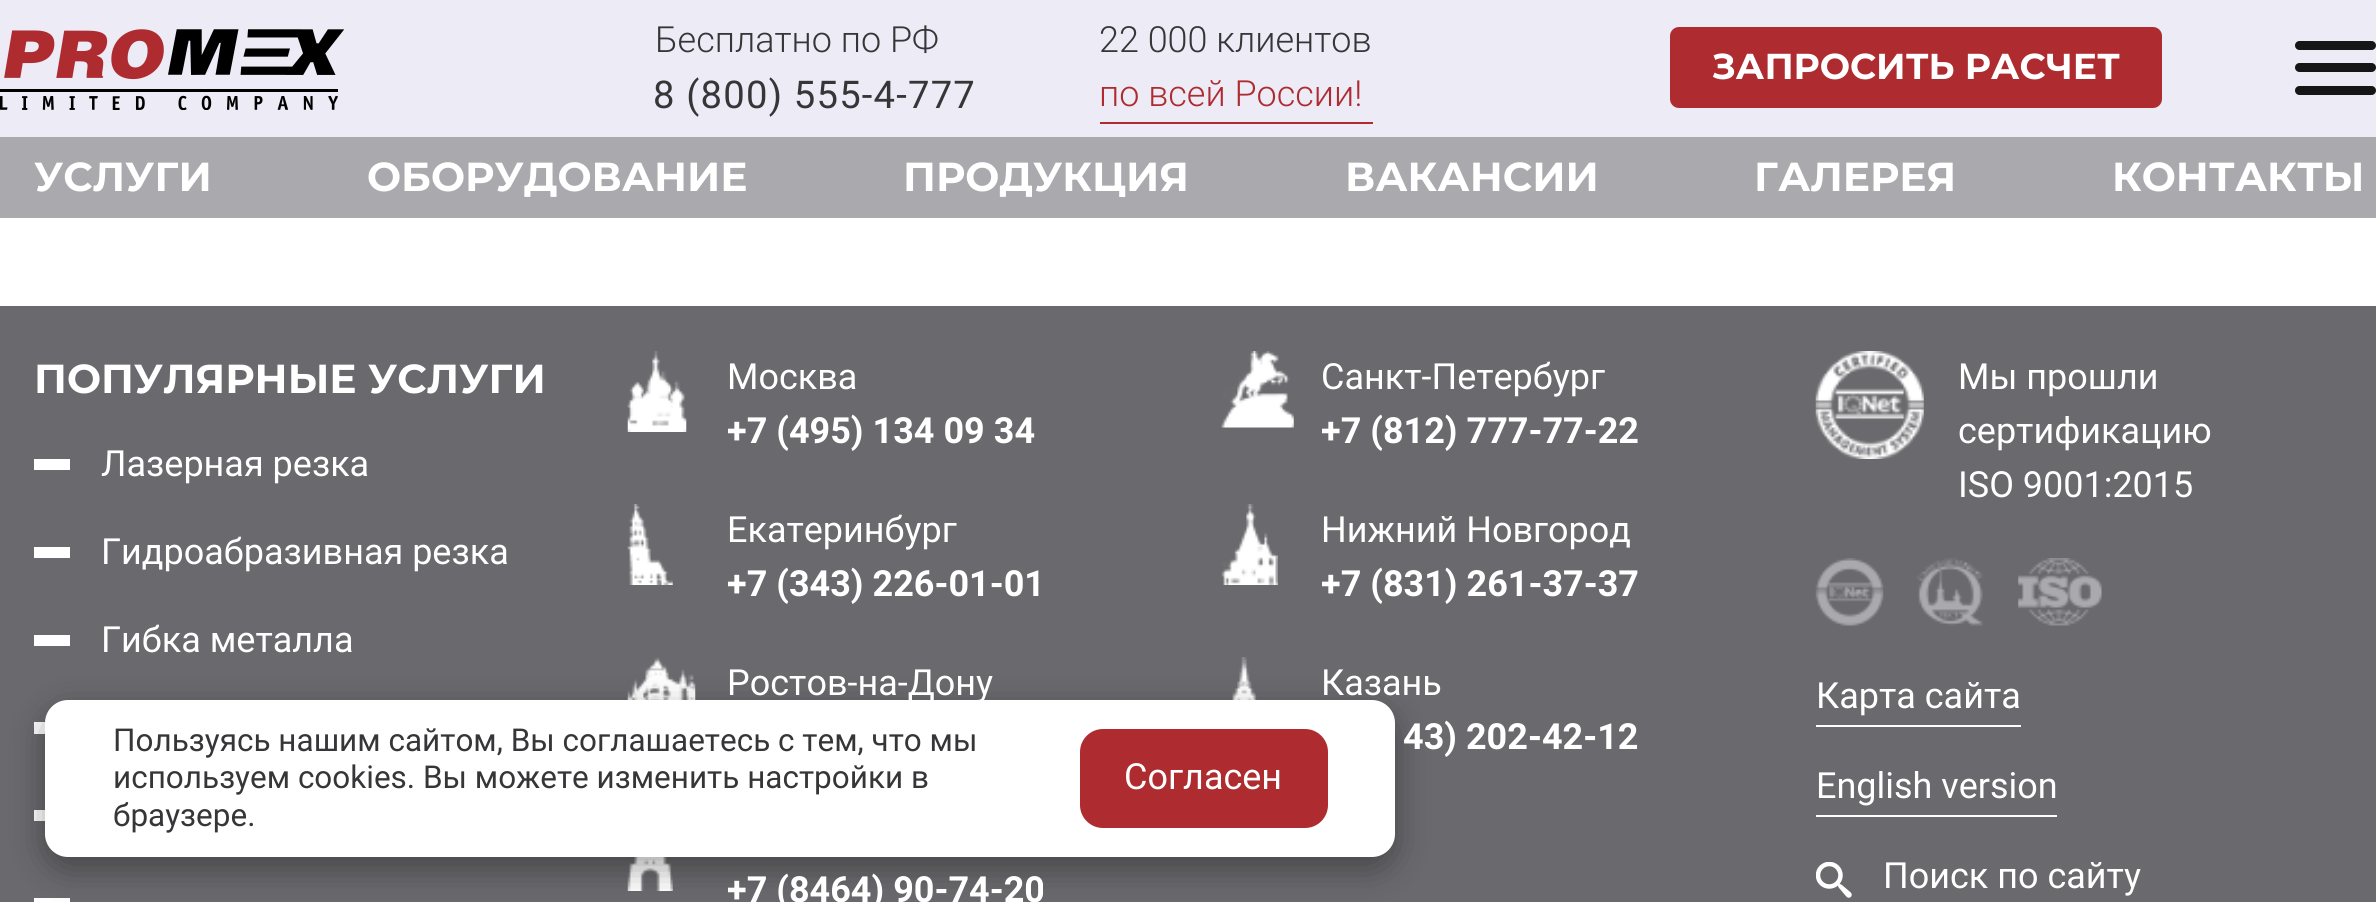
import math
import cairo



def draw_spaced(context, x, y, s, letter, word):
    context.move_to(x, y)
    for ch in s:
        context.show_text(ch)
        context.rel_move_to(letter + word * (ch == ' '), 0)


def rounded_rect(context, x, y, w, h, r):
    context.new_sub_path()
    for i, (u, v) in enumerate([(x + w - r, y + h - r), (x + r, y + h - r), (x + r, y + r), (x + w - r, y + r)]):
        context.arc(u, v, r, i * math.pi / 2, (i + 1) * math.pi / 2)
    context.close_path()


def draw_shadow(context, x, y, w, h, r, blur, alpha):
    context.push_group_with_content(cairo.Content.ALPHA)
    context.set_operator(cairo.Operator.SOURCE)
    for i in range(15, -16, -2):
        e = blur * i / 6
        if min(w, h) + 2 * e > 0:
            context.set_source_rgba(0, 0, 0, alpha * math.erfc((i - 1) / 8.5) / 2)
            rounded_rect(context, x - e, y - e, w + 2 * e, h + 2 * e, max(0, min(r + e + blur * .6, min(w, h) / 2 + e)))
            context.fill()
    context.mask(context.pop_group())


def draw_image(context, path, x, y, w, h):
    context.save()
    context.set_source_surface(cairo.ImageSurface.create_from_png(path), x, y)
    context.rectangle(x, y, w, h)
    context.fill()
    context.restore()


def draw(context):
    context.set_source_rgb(106 / 255, 106 / 255, 110 / 255)
    context.paint()
    context.set_source_rgb(236 / 255, 235 / 255, 246 / 255)
    context.rectangle(0, 0, 2376, 137)
    context.fill()
    draw_image(context, "images/1.png", 0, 29, 344, 81)
    context.set_source_rgb(174 / 255, 44 / 255, 48 / 255)
    context.rectangle(1100, 122, 273, 2)
    context.fill()
    rounded_rect(context, 1670, 27, 492, 81, 9)
    context.fill()
    context.set_source_rgb(22 / 255, 22 / 255, 23 / 255)
    rounded_rect(context, 2295, 63, 81, 9, 4.5)
    context.fill()
    rounded_rect(context, 2295, 41, 81, 9, 4.5)
    context.fill()
    rounded_rect(context, 2295, 86, 81, 9, 4.5)
    context.fill()
    context.set_source_rgb(170 / 255, 169 / 255, 174 / 255)
    context.rectangle(0, 137, 2376, 81)
    context.fill()
    gradient = cairo.LinearGradient(1188, -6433, 1188, 306)
    gradient.add_color_stop_rgba(0, 236 / 255, 235 / 255, 246 / 255, 1)
    gradient.add_color_stop_rgba(1, 1, 1, 1, 1)
    context.set_source(gradient)
    context.rectangle(0, 218, 2376, 88)
    context.fill()
    context.set_source_rgb(1, 1, 1)
    context.rectangle(34, 459, 36, 11)
    context.fill()
    context.rectangle(34, 547, 36, 11)
    context.fill()
    context.rectangle(34, 635, 36, 11)
    context.fill()
    context.rectangle(34, 722, 12, 12)
    context.fill()
    context.rectangle(34, 810, 11, 11)
    context.fill()
    context.rectangle(34, 898, 36, 4)
    context.fill()
    draw_image(context, "images/2.png", 627, 351, 60, 81)
    draw_image(context, "images/3.png", 1221, 351, 73, 77)
    draw_image(context, "images/4.png", 627, 504, 46, 81)
    draw_image(context, "images/5.png", 1221, 504, 57, 81)
    draw_image(context, "images/6.png", 627, 657, 69, 43)
    draw_image(context, "images/7.png", 1232, 657, 25, 43)
    draw_image(context, "images/8.png", 627, 857, 46, 34)
    draw_image(context, "images/9.png", 1815, 351, 109, 108)
    draw_image(context, "images/10.png", 1815, 558, 69, 68)
    draw_image(context, "images/11.png", 1917, 558, 66, 68)
    draw_image(context, "images/12.png", 2018, 558, 84, 68)
    context.rectangle(1816, 725, 205, 2)
    context.fill()
    context.rectangle(1816, 815, 241, 2)
    context.fill()
    draw_image(context, "images/13.png", 1816, 862, 36, 36)
    context.set_source_rgb(0, 0, 0)
    draw_shadow(context, 45, 711, 1350, 158, 23, 17, 0.35)
    context.set_source_rgb(1, 1, 1)
    rounded_rect(context, 45, 700, 1350, 157, 23)
    context.fill()
    context.set_source_rgb(174 / 255, 44 / 255, 48 / 255)
    rounded_rect(context, 1080, 729, 248, 99, 23)
    context.fill()
    context.select_font_face("Roboto Light")
    context.set_font_size(36)
    context.set_source_rgb(54 / 255, 54 / 255, 56 / 255)
    context.move_to(655, 52)
    context.show_text("Бесплатно по РФ")
    context.select_font_face("Roboto")
    context.set_font_size(38.25)
    draw_spaced(context, 653, 108, "8 (800) 555-4-777", 1.2, 0)
    context.select_font_face("Roboto Light")
    context.set_font_size(36)
    context.move_to(1099, 52)
    context.show_text("22 000 клиентов")
    context.set_source_rgb(174 / 255, 44 / 255, 48 / 255)
    context.move_to(1099, 106)
    context.show_text("по всей России!")
    context.select_font_face("Montserrat", cairo.FontSlant.NORMAL, cairo.FontWeight.BOLD)
    context.set_source_rgb(1, 1, 1)
    context.move_to(1712, 79)
    context.show_text("ЗАПРОСИТЬ РАСЧЕТ")
    context.set_font_size(40.5)
    context.move_to(34, 191)
    context.show_text("УСЛУГИ")
    context.move_to(367, 191)
    context.show_text("ОБОРУДОВАНИЕ")
    context.move_to(903, 191)
    context.show_text("ПРОДУКЦИЯ")
    context.move_to(1345, 191)
    context.show_text("ВАКАНСИИ")
    context.move_to(1754, 191)
    context.show_text("ГАЛЕРЕЯ")
    context.move_to(2112, 191)
    context.show_text("КОНТАКТЫ")
    context.move_to(34, 393)
    context.show_text("ПОПУЛЯРНЫЕ УСЛУГИ")
    context.select_font_face("Roboto")
    context.set_font_size(36)
    context.move_to(101, 476)
    context.show_text("Лазерная резка")
    context.move_to(101, 564)
    context.show_text("Гидроабразивная резка")
    context.move_to(101, 652)
    context.show_text("Гибка металла")
    context.move_to(727, 389)
    context.show_text("Москва")
    context.select_font_face("Roboto", cairo.FontSlant.NORMAL, cairo.FontWeight.BOLD)
    context.move_to(727, 443)
    context.show_text("+7 (495) 134 09 34")
    context.select_font_face("Roboto")
    context.move_to(1321, 389)
    context.show_text("Санкт-Петербург")
    context.select_font_face("Roboto", cairo.FontSlant.NORMAL, cairo.FontWeight.BOLD)
    context.move_to(1321, 443)
    context.show_text("+7 (812) 777-77-22")
    context.select_font_face("Roboto")
    context.move_to(727, 542)
    context.show_text("Екатеринбург")
    context.select_font_face("Roboto", cairo.FontSlant.NORMAL, cairo.FontWeight.BOLD)
    context.move_to(727, 596)
    context.show_text("+7 (343) 226-01-01")
    context.select_font_face("Roboto")
    context.move_to(1321, 542)
    context.show_text("Нижний Новгород")
    context.select_font_face("Roboto", cairo.FontSlant.NORMAL, cairo.FontWeight.BOLD)
    context.move_to(1321, 596)
    context.show_text("+7 (831) 261-37-37")
    context.select_font_face("Roboto")
    context.move_to(727, 695)
    context.show_text("Ростов-на-Дону")
    context.move_to(1321, 695)
    context.show_text("Казань")
    context.select_font_face("Roboto", cairo.FontSlant.NORMAL, cairo.FontWeight.BOLD)
    context.move_to(1403, 749)
    context.show_text("43) 202-42-12")
    context.move_to(727, 902)
    context.show_text("+7 (8464) 90-74-20")
    context.select_font_face("Roboto")
    context.move_to(1958, 389)
    context.show_text("Мы прошли")
    context.move_to(1958, 443)
    context.show_text("сертификацию")
    context.move_to(1958, 497)
    context.show_text("ISO 9001:2015")
    context.move_to(1816, 708)
    context.show_text("Карта сайта")
    context.move_to(1816, 798)
    context.show_text("English version")
    context.move_to(1883, 888)
    context.show_text("Поиск по сайту")
    context.set_font_size(31.5)
    context.set_source_rgb(54 / 255, 54 / 255, 56 / 255)
    context.move_to(113, 751)
    context.show_text("Пользуясь нашим сайтом, Вы соглашаетесь с тем, что мы")
    context.move_to(113, 788)
    context.show_text("используем cookies. Вы можете изменить настройки в")
    context.move_to(113, 826)
    context.show_text("браузере.")
    context.set_font_size(36)
    context.set_source_rgb(1, 1, 1)
    context.move_to(1124, 789)
    context.show_text("Согласен")


surface = cairo.ImageSurface(cairo.Format.RGB24, 2376, 902)
context = cairo.Context(surface)
options = cairo.FontOptions()
options.set_hint_metrics(cairo.HintMetrics.OFF)
options.set_hint_style(cairo.HintStyle.NONE)
context.set_font_options(options)
context.set_miter_limit(4)
draw(context)
surface.write_to_png("out.png")
